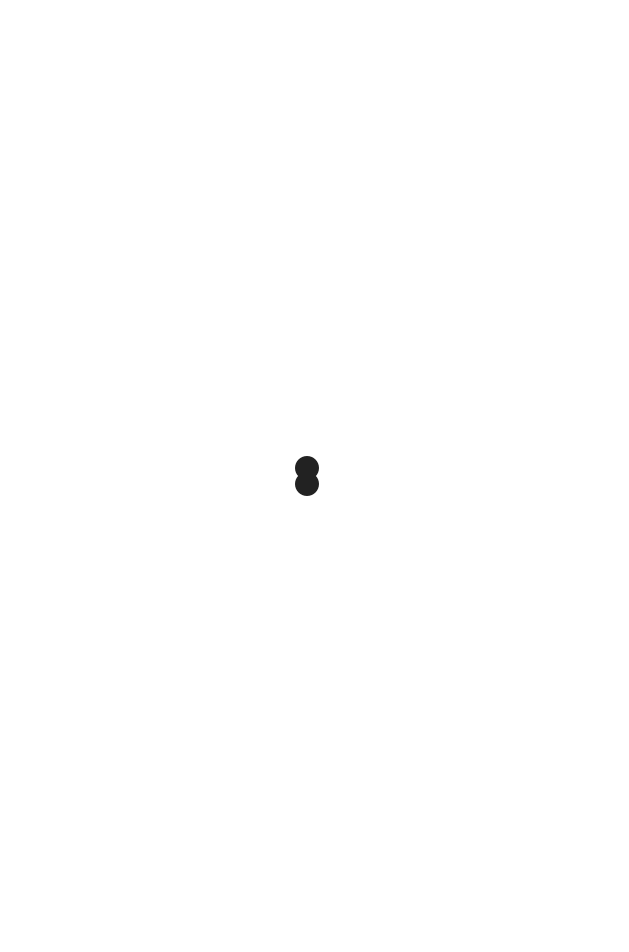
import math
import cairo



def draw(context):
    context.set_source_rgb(1, 1, 1)
    context.paint()
    context.set_source_rgb(34 / 255, 34 / 255, 34 / 255)
    context.arc(307, 468, 12, 0, 2 * math.pi)
    context.fill()
    context.arc(307, 484, 12, 0, 2 * math.pi)
    context.fill()


surface = cairo.ImageSurface(cairo.Format.RGB24, 629, 952)
context = cairo.Context(surface)
options = cairo.FontOptions()
options.set_hint_metrics(cairo.HintMetrics.OFF)
options.set_hint_style(cairo.HintStyle.NONE)
context.set_font_options(options)
context.set_miter_limit(4)
draw(context)
surface.write_to_png("out.png")
